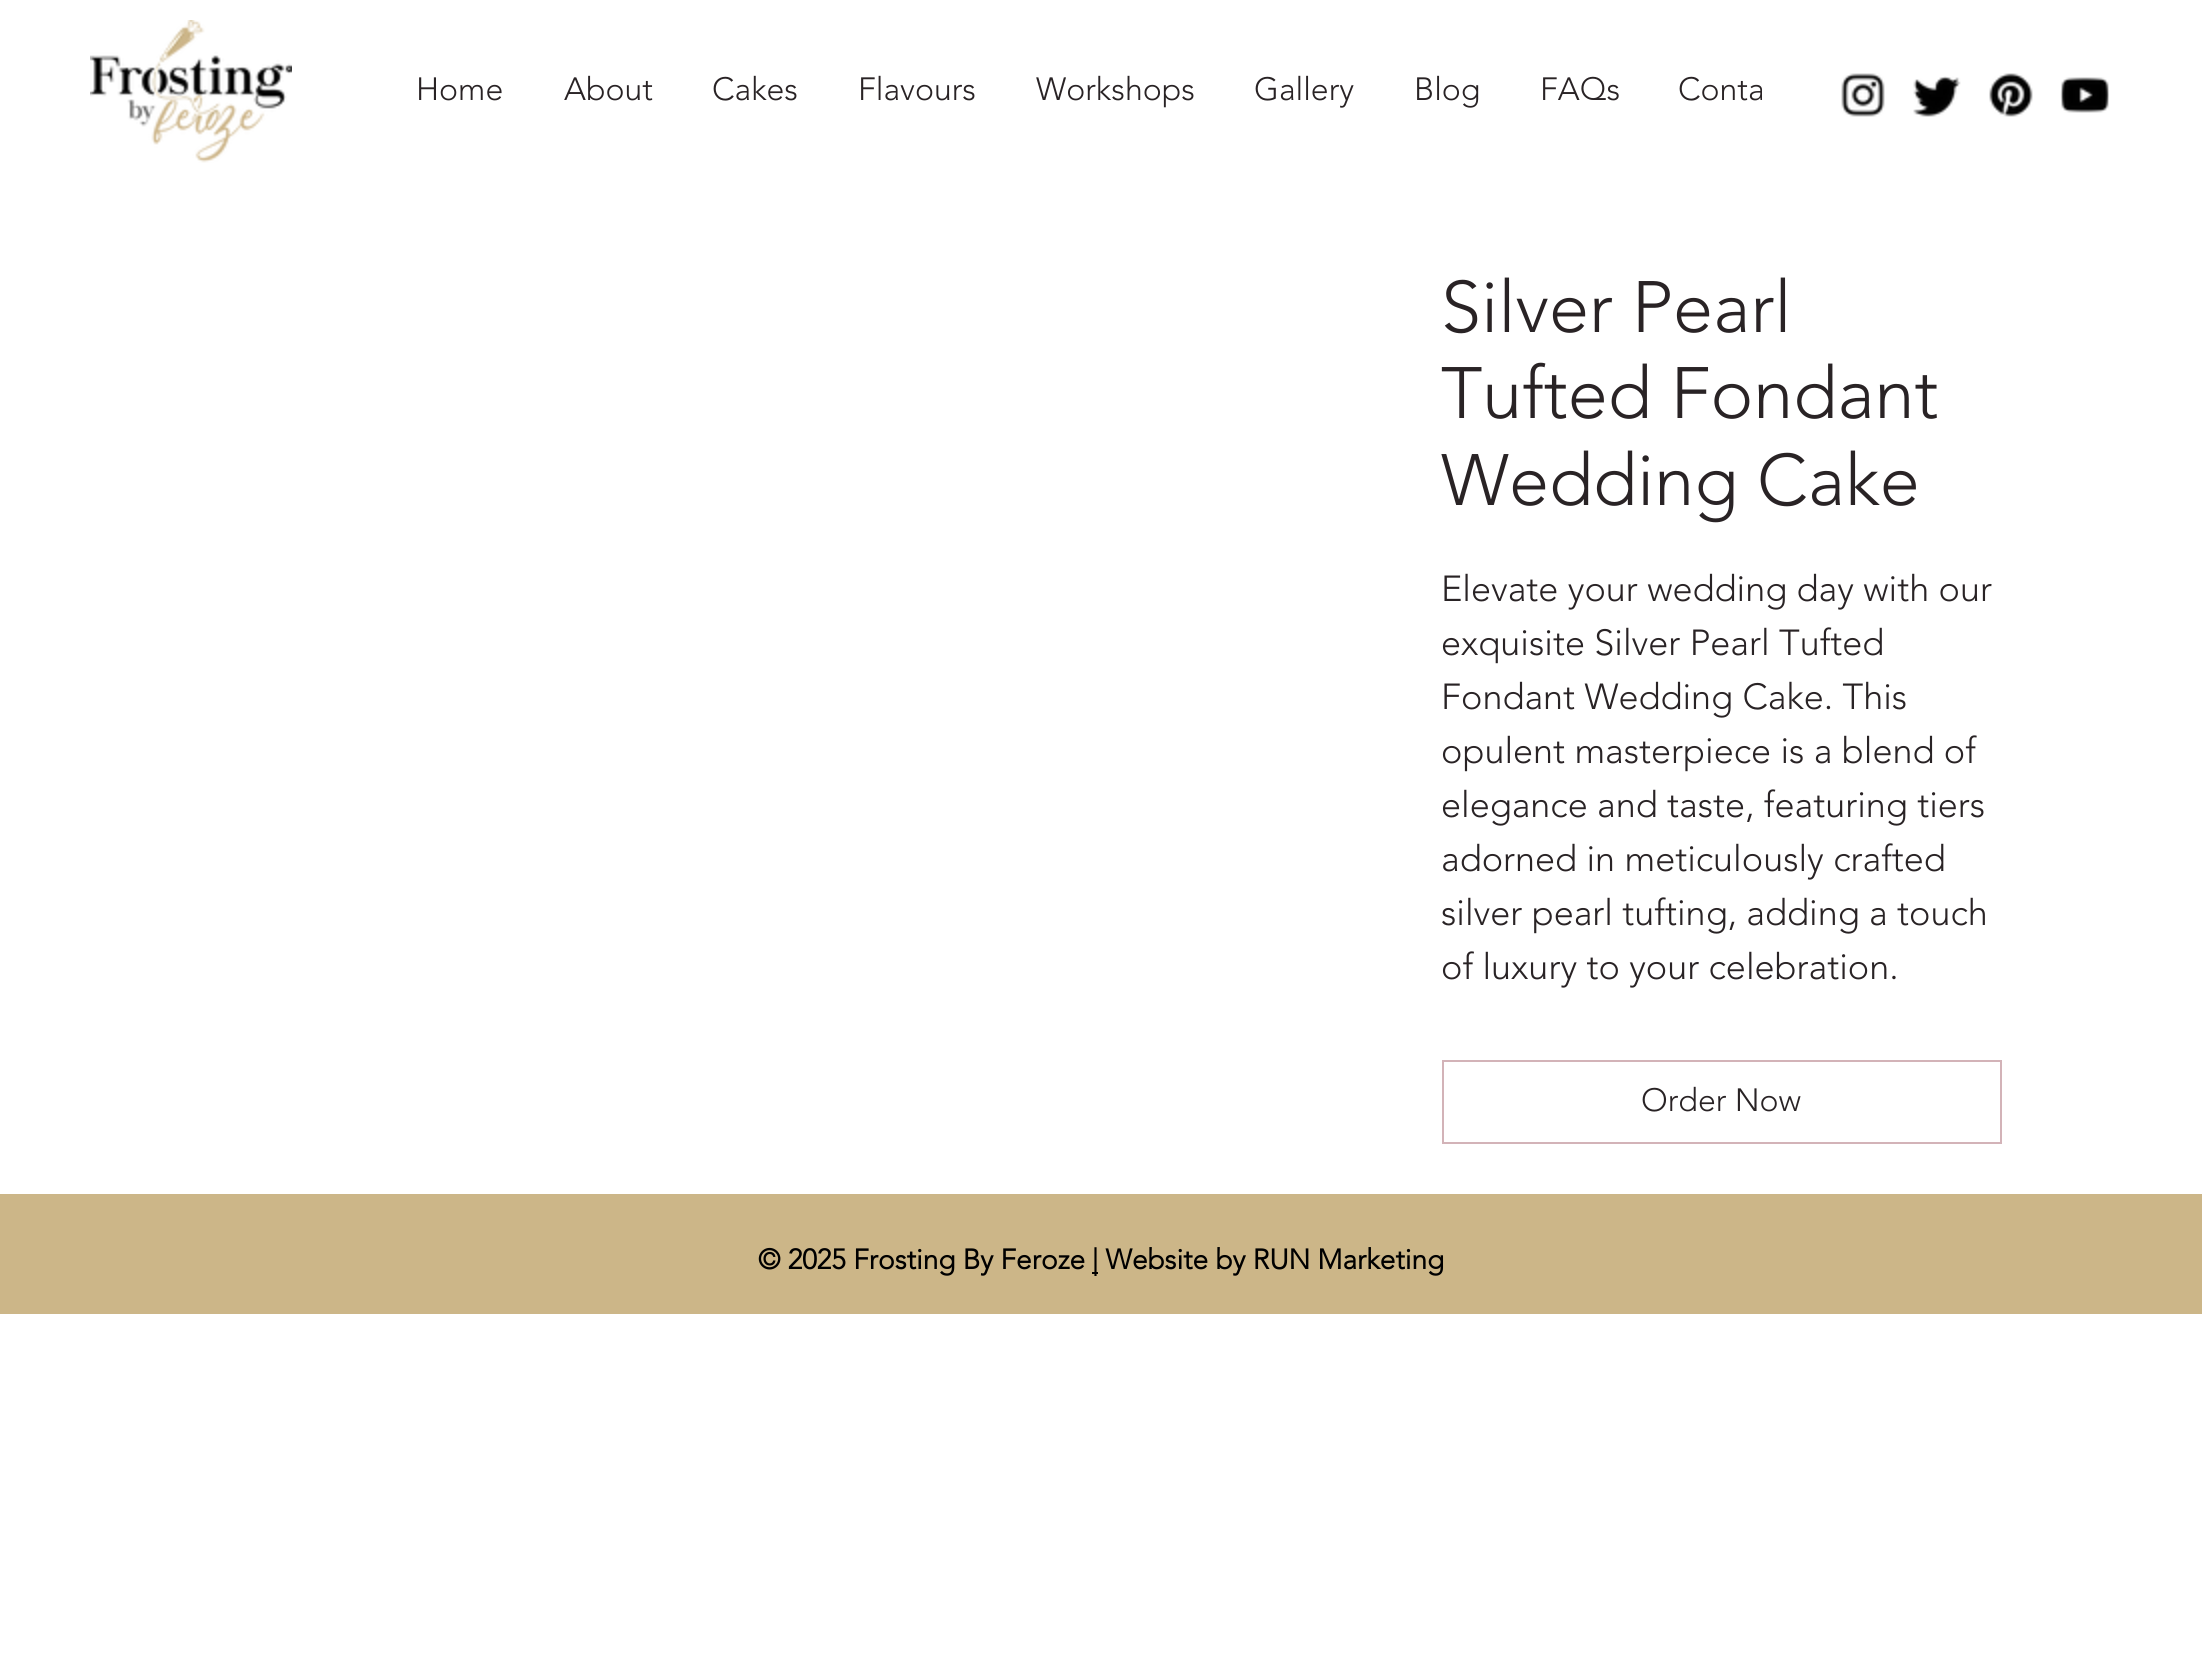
import math
import cairo



def draw_image(context, path, x, y, w, h):
    context.save()
    context.set_source_surface(cairo.ImageSurface.create_from_png(path), x, y)
    context.rectangle(x, y, w, h)
    context.fill()
    context.restore()


def draw(context):
    context.set_source_rgb(1, 1, 1)
    context.paint()
    draw_image(context, "images/1.png", 90, 20, 202, 143)
    draw_image(context, "images/2.png", 1841, 73, 44, 44)
    draw_image(context, "images/3.png", 1913, 76, 48, 41)
    draw_image(context, "images/4.png", 1989, 73, 44, 44)
    draw_image(context, "images/5.png", 2060, 77, 49, 36)
    context.rectangle(1443, 1061, 558, 82)
    context.set_source_rgb(211 / 255, 179 / 255, 184 / 255)
    context.stroke()
    context.set_source_rgb(204 / 255, 182 / 255, 136 / 255)
    context.rectangle(0, 1194, 2202, 120)
    context.fill()
    context.set_source_rgb(0, 0, 0)
    context.rectangle(1092, 1272, 6, 2)
    context.fill()
    context.select_font_face("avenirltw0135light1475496 Light")
    context.set_font_size(32)
    context.set_source_rgb(41 / 255, 35 / 255, 37 / 255)
    context.move_to(416, 100)
    context.show_text("Home")
    context.move_to(564, 100)
    context.show_text("About")
    context.move_to(712, 100)
    context.show_text("Cakes")
    context.move_to(858, 100)
    context.show_text("Flavours")
    context.move_to(1036, 100)
    context.show_text("Workshops")
    context.move_to(1254, 100)
    context.show_text("Gallery")
    context.move_to(1414, 100)
    context.show_text("Blog")
    context.move_to(1540, 100)
    context.show_text("FAQs")
    context.move_to(1678, 100)
    context.show_text("Conta")
    context.set_source_rgb(1, 1, 1)
    context.rectangle(1762, 90, 1, 10)
    context.fill()
    context.set_font_size(72)
    context.set_source_rgb(41 / 255, 35 / 255, 37 / 255)
    context.move_to(1441, 332)
    context.show_text("Silver Pearl")
    context.move_to(1441, 418)
    context.show_text("Tufted Fondant")
    context.move_to(1441, 505)
    context.show_text("Wedding Cake")
    context.set_font_size(36)
    context.move_to(1441, 601)
    context.show_text("Elevate your wedding day with our")
    context.move_to(1441, 655)
    context.show_text("exquisite Silver Pearl Tufted")
    context.move_to(1441, 709)
    context.show_text("Fondant Wedding Cake. This")
    context.move_to(1441, 763)
    context.show_text("opulent masterpiece is a blend of")
    context.move_to(1441, 817)
    context.show_text("elegance and taste, featuring tiers")
    context.move_to(1441, 871)
    context.show_text("adorned in meticulously crafted")
    context.move_to(1441, 925)
    context.show_text("silver pearl tufting, adding a touch")
    context.move_to(1441, 979)
    context.show_text("of luxury to your celebration.")
    context.set_font_size(32)
    context.move_to(1641, 1111)
    context.show_text("Order Now")
    context.select_font_face("avenirltw0135light1475496", cairo.FontSlant.NORMAL, cairo.FontWeight.BOLD)
    context.set_font_size(28)
    context.set_source_rgb(0, 0, 0)
    context.move_to(758, 1269)
    context.show_text("© 2025 Frosting By Feroze")
    context.move_to(1092, 1269)
    context.show_text("| Website by RUN Marketing")


surface = cairo.ImageSurface(cairo.Format.RGB24, 2202, 1653)
context = cairo.Context(surface)
options = cairo.FontOptions()
options.set_hint_metrics(cairo.HintMetrics.OFF)
options.set_hint_style(cairo.HintStyle.NONE)
context.set_font_options(options)
context.set_miter_limit(4)
draw(context)
surface.write_to_png("out.png")
